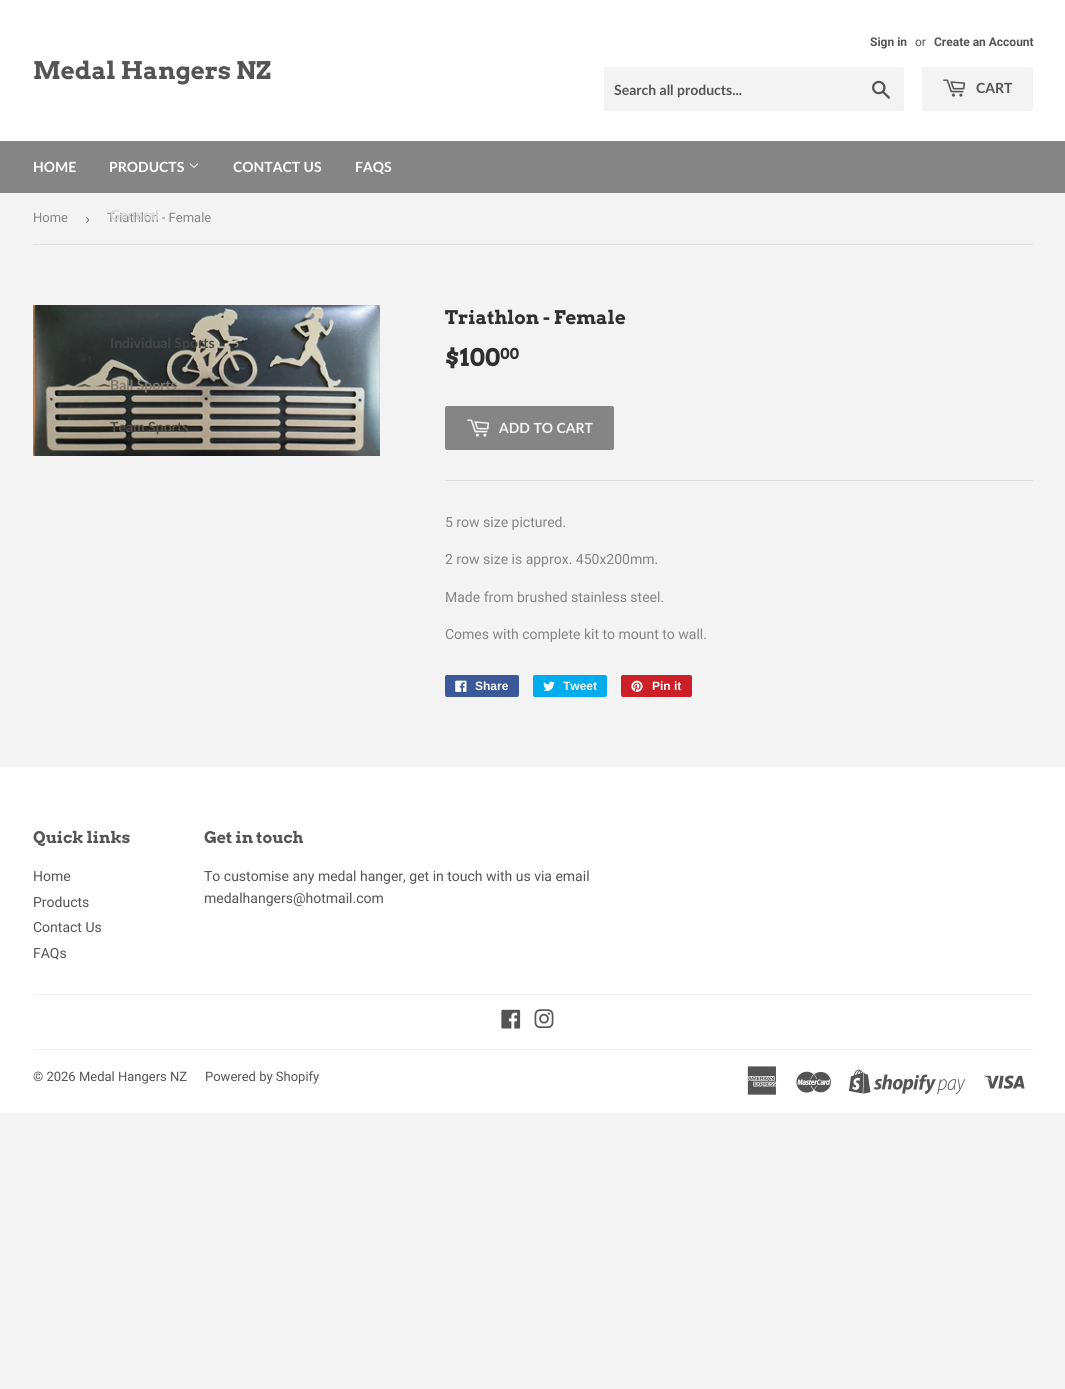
import math
import cairo



def rounded_rect(context, x, y, w, h, r):
    context.new_sub_path()
    for i, (u, v) in enumerate([(x + w - r, y + h - r), (x + r, y + h - r), (x + r, y + r), (x + w - r, y + r)]):
        context.arc(u, v, r, i * math.pi / 2, (i + 1) * math.pi / 2)
    context.close_path()


def draw_image(context, path, x, y, w, h):
    context.save()
    context.set_source_surface(cairo.ImageSurface.create_from_png(path), x, y)
    context.rectangle(x, y, w, h)
    context.fill()
    context.restore()


def draw(context):
    context.set_source_rgb(243 / 255, 243 / 255, 243 / 255)
    context.paint()
    context.set_source_rgb(1, 1, 1)
    context.rectangle(0, 0, 1065, 141)
    context.fill()
    context.set_source_rgb(243 / 255, 243 / 255, 243 / 255)
    rounded_rect(context, 604, 67, 300, 44, 2)
    context.fill()
    draw_image(context, "images/1.png", 872, 80, 18, 19)
    rounded_rect(context, 922, 67, 111, 44, 2)
    context.fill()
    draw_image(context, "images/2.png", 943, 79, 23, 18)
    context.set_source_rgb(133 / 255, 133 / 255, 133 / 255)
    context.rectangle(0, 141, 1065, 52)
    context.fill()
    draw_image(context, "images/3.png", 189, 163, 10, 5)
    context.set_source_rgb(222 / 255, 222 / 255, 222 / 255)
    context.rectangle(33, 244, 1000, 1)
    context.fill()
    draw_image(context, "images/4.png", 33, 305, 347, 151)
    context.set_source_rgb(133 / 255, 133 / 255, 133 / 255)
    rounded_rect(context, 445, 406, 169, 44, 2)
    context.fill()
    draw_image(context, "images/5.png", 467, 419, 23, 18)
    context.set_source_rgb(222 / 255, 222 / 255, 222 / 255)
    context.rectangle(445, 480, 588, 1)
    context.fill()
    context.set_source_rgb(59 / 255, 89 / 255, 152 / 255)
    rounded_rect(context, 445, 675, 74, 22, 2)
    context.fill()
    draw_image(context, "images/6.png", 455, 680, 12, 12)
    context.set_source_rgb(0, 172 / 255, 237 / 255)
    rounded_rect(context, 533, 675, 74, 22, 2)
    context.fill()
    draw_image(context, "images/7.png", 543, 681, 12, 10)
    context.set_source_rgb(203 / 255, 32 / 255, 39 / 255)
    rounded_rect(context, 621, 675, 71, 22, 2)
    context.fill()
    draw_image(context, "images/8.png", 631, 680, 12, 12)
    context.set_source_rgb(1, 1, 1)
    context.rectangle(0, 767, 1065, 346)
    context.fill()
    context.set_source_rgb(242 / 255, 242 / 255, 242 / 255)
    context.rectangle(33, 994, 1000, 1)
    context.fill()
    draw_image(context, "images/9.png", 501, 1009, 20, 20)
    draw_image(context, "images/10.png", 534, 1009, 20, 20)
    context.rectangle(33, 1049, 1000, 1)
    context.fill()
    draw_image(context, "images/11.png", 747, 1066, 30, 29)
    draw_image(context, "images/12.png", 796, 1071, 35, 22)
    draw_image(context, "images/13.png", 849, 1069, 117, 26)
    draw_image(context, "images/14.png", 984, 1075, 41, 14)
    context.select_font_face("Arvo", cairo.FontSlant.NORMAL, cairo.FontWeight.BOLD)
    context.set_font_size(24.25)
    context.set_source_rgb(84 / 255, 84 / 255, 84 / 255)
    context.move_to(33, 79)
    context.show_text("Medal Hangers NZ")
    context.select_font_face("Roboto", cairo.FontSlant.NORMAL, cairo.FontWeight.BOLD)
    context.set_font_size(12)
    context.move_to(870, 46)
    context.show_text("Sign in")
    context.select_font_face("Roboto")
    context.move_to(915, 46)
    context.show_text("or")
    context.select_font_face("Roboto", cairo.FontSlant.NORMAL, cairo.FontWeight.BOLD)
    context.move_to(934, 46)
    context.show_text("Create an Account")
    context.select_font_face("Lato", cairo.FontSlant.NORMAL, cairo.FontWeight.BOLD)
    context.set_font_size(14)
    context.move_to(614, 95)
    context.show_text("Search all products...")
    context.move_to(976, 93)
    context.show_text("CART")
    context.set_source_rgb(1, 1, 1)
    context.move_to(33, 172)
    context.show_text("HOME")
    context.move_to(109, 172)
    context.show_text("PRODUCTS")
    context.set_source_rgb(69 / 255, 72 / 255, 69 / 255)
    context.move_to(110, 348)
    context.show_text("Individual Sports")
    context.set_source_rgb(126 / 255, 122 / 255, 111 / 255)
    context.move_to(110, 390)
    context.show_text("Ball Sports")
    context.set_source_rgb(84 / 255, 80 / 255, 72 / 255)
    context.move_to(110, 432)
    context.show_text("Team Sports")
    context.set_source_rgb(1, 1, 1)
    context.move_to(233, 172)
    context.show_text("CONTACT US")
    context.move_to(355, 172)
    context.show_text("FAQS")
    context.select_font_face("Roboto")
    context.set_font_size(13)
    context.set_source_rgb(133 / 255, 133 / 255, 133 / 255)
    context.move_to(33, 222)
    context.show_text("Home")
    context.select_font_face("Liberation Sans")
    context.set_font_size(15)
    context.set_source_rgb(118 / 255, 118 / 255, 118 / 255)
    context.move_to(85, 224)
    context.show_text("›")
    context.select_font_face("Roboto")
    context.set_font_size(13)
    context.set_source_rgb(133 / 255, 133 / 255, 133 / 255)
    context.move_to(107, 222)
    context.show_text("Triathlon - Female")
    context.select_font_face("Lato", cairo.FontSlant.NORMAL, cairo.FontWeight.BOLD)
    context.set_font_size(14)
    context.set_source_rgb(216 / 255, 216 / 255, 216 / 255)
    context.move_to(110, 220)
    context.show_text("General")
    context.select_font_face("Arvo", cairo.FontSlant.NORMAL, cairo.FontWeight.BOLD)
    context.set_font_size(18.75)
    context.set_source_rgb(47 / 255, 47 / 255, 47 / 255)
    context.move_to(445, 324)
    context.show_text("Triathlon - Female")
    context.set_font_size(24.25)
    context.move_to(445, 366)
    context.show_text("$100")
    context.set_font_size(15)
    context.move_to(500, 359)
    context.show_text("00")
    context.select_font_face("Lato", cairo.FontSlant.NORMAL, cairo.FontWeight.BOLD)
    context.set_font_size(14)
    context.set_source_rgb(243 / 255, 243 / 255, 243 / 255)
    context.move_to(499, 433)
    context.show_text("ADD TO CART")
    context.select_font_face("Roboto")
    context.set_source_rgb(133 / 255, 133 / 255, 133 / 255)
    context.move_to(445, 527)
    context.show_text("5 row size pictured.")
    context.move_to(445, 564)
    context.show_text("2 row size is approx. 450x200mm.")
    context.move_to(445, 602)
    context.show_text("Made from brushed stainless steel.")
    context.move_to(445, 639)
    context.show_text("Comes with complete kit to mount to wall.")
    context.select_font_face("Liberation Sans", cairo.FontSlant.NORMAL, cairo.FontWeight.BOLD)
    context.set_font_size(12)
    context.set_source_rgb(1, 1, 1)
    context.move_to(475, 690)
    context.show_text("Share")
    context.move_to(563, 690)
    context.show_text("Tweet")
    context.move_to(652, 690)
    context.show_text("Pin it")
    context.select_font_face("Arvo", cairo.FontSlant.NORMAL, cairo.FontWeight.BOLD)
    context.set_font_size(16)
    context.set_source_rgb(84 / 255, 84 / 255, 84 / 255)
    context.move_to(33, 843)
    context.show_text("Quick links")
    context.select_font_face("Roboto")
    context.set_font_size(14)
    context.move_to(33, 881)
    context.show_text("Home")
    context.move_to(33, 907)
    context.show_text("Products")
    context.move_to(33, 932)
    context.show_text("Contact Us")
    context.move_to(33, 958)
    context.show_text("FAQs")
    context.select_font_face("Arvo", cairo.FontSlant.NORMAL, cairo.FontWeight.BOLD)
    context.set_font_size(16)
    context.move_to(204, 843)
    context.show_text("Get in touch")
    context.select_font_face("Roboto")
    context.set_font_size(14)
    context.move_to(204, 881)
    context.show_text("To customise any medal hanger, get in touch with us via email")
    context.move_to(204, 903)
    context.show_text("medalhangers@hotmail.com")
    context.set_font_size(13)
    context.move_to(33, 1081)
    context.show_text("© 2026 Medal Hangers NZ")
    context.move_to(205, 1081)
    context.show_text("Powered by Shopify")


surface = cairo.ImageSurface(cairo.Format.RGB24, 1065, 1389)
context = cairo.Context(surface)
options = cairo.FontOptions()
options.set_hint_metrics(cairo.HintMetrics.OFF)
options.set_hint_style(cairo.HintStyle.NONE)
context.set_font_options(options)
context.set_miter_limit(4)
draw(context)
surface.write_to_png("out.png")
